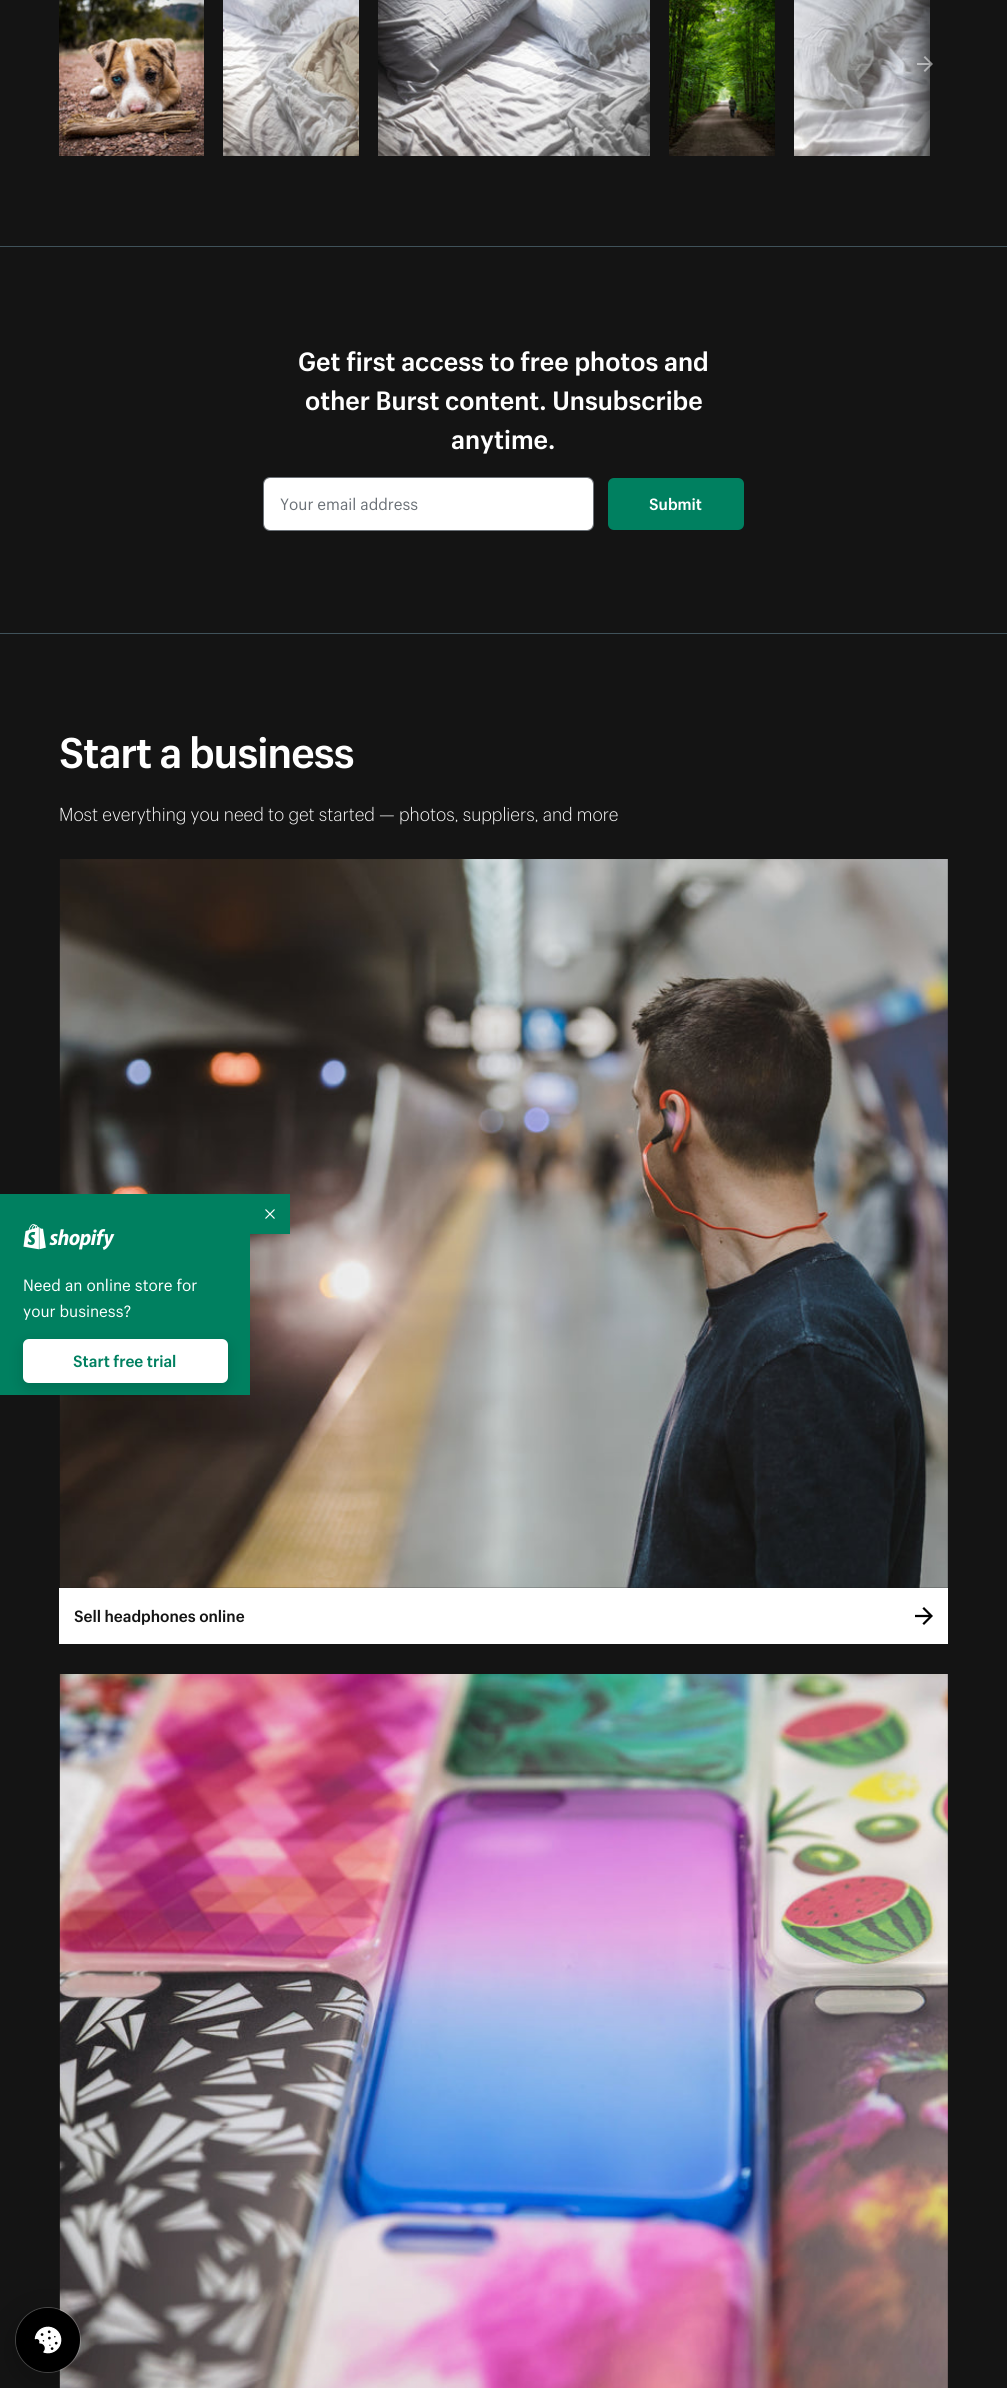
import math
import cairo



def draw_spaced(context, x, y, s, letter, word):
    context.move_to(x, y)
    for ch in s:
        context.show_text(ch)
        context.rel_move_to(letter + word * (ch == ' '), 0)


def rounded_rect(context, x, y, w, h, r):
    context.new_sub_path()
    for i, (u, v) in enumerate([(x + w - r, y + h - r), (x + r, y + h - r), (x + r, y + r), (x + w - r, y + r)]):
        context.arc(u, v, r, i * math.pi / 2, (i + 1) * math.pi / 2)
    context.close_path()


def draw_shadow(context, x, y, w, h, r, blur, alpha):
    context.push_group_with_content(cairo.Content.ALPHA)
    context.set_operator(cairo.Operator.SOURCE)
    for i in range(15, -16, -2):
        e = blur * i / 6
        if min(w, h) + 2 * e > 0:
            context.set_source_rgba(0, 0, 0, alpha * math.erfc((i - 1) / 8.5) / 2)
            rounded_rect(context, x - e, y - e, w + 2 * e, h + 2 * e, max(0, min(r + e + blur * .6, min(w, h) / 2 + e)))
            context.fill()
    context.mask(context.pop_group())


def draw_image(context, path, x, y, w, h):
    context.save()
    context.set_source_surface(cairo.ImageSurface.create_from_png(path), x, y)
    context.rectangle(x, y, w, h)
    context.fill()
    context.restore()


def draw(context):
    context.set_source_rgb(20 / 255, 20 / 255, 20 / 255)
    context.paint()
    draw_image(context, "images/1.png", 59, 0, 145, 156)
    draw_image(context, "images/2.png", 223, 0, 136, 156)
    draw_image(context, "images/3.png", 378, 0, 272, 156)
    draw_image(context, "images/4.png", 669, 0, 106, 156)
    draw_image(context, "images/5.png", 794, 0, 136, 156)
    gradient = cairo.LinearGradient(902, 66, 948, 66)
    gradient.add_color_stop_rgba(0, 20 / 255, 20 / 255, 20 / 255, 0)
    gradient.add_color_stop_rgba(0.95, 20 / 255, 20 / 255, 20 / 255, 1)
    gradient.add_color_stop_rgba(1, 20 / 255, 20 / 255, 20 / 255, 1)
    context.set_source(gradient)
    context.rectangle(903, 0, 27, 156)
    context.fill()
    draw_image(context, "images/6.png", 917, 56, 16, 16)
    context.set_source_rgb(64 / 255, 82 / 255, 90 / 255)
    context.rectangle(0, 246, 1007, 1)
    context.fill()
    rounded_rect(context, 263.5, 477.5, 330, 53, 6.5)
    context.set_source_rgb(107 / 255, 113 / 255, 119 / 255)
    context.set_line_width(1)
    context.stroke()
    context.set_source_rgb(1, 1, 1)
    rounded_rect(context, 264, 478, 329, 52, 6)
    context.fill()
    context.set_source_rgb(0, 128 / 255, 96 / 255)
    rounded_rect(context, 608, 478, 136, 52, 6)
    context.fill()
    context.set_source_rgb(64 / 255, 82 / 255, 90 / 255)
    context.rectangle(0, 633, 1007, 1)
    context.fill()
    draw_image(context, "images/7.png", 59, 859, 889, 729)
    context.set_source_rgb(1, 1, 1)
    context.rectangle(59, 1588, 889, 56)
    context.fill()
    draw_image(context, "images/8.png", 915, 1607, 18, 18)
    draw_image(context, "images/9.png", 59, 1674, 889, 714)
    context.set_source_rgb(0, 128 / 255, 96 / 255)
    context.rectangle(250, 1194, 40, 40)
    context.fill()
    draw_image(context, "images/10.png", 265, 1209, 10, 10)
    context.rectangle(0, 1194, 250, 201)
    context.fill()
    draw_image(context, "images/11.png", 23, 1224, 92, 26)
    context.set_source_rgb(0, 0, 0)
    draw_shadow(context, 23, 1344, 205, 44, 6, 7.5, 0.15)
    context.set_source_rgb(1, 1, 1)
    rounded_rect(context, 23, 1339, 205, 44, 6)
    context.fill()
    context.arc(48, 2340, 32.5, 0, 2 * math.pi)
    context.set_source_rgba(1, 1, 1, 0.25)
    context.stroke()
    context.set_source_rgb(0, 0, 0)
    draw_shadow(context, 16, 2318, 64, 64, 32, 25, 0.25)
    context.set_source_rgb(0, 0, 0)
    context.arc(48, 2340, 32, 0, 2 * math.pi)
    context.fill()
    draw_image(context, "images/12.png", 34, 2326, 28, 28)
    context.select_font_face("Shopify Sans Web", cairo.FontSlant.NORMAL, cairo.FontWeight.BOLD)
    context.set_font_size(25.9)
    context.set_source_rgb(1, 1, 1)
    context.move_to(298, 371)
    context.show_text("Get first access to free photos and")
    context.move_to(305, 410)
    context.show_text("other Burst content. Unsubscribe")
    context.move_to(451, 449)
    context.show_text("anytime.")
    context.select_font_face("Shopify Sans Web")
    context.set_font_size(16)
    context.set_source_rgb(107 / 255, 113 / 255, 119 / 255)
    context.move_to(280, 510)
    context.show_text("Your email address")
    context.select_font_face("Shopify Sans Web", cairo.FontSlant.NORMAL, cairo.FontWeight.BOLD)
    context.set_source_rgb(1, 1, 1)
    context.move_to(649, 510)
    context.show_text("Submit")
    context.set_font_size(42)
    draw_spaced(context, 59, 768, "Start a business", -0.9, 0)
    context.select_font_face("Shopify Sans Web Light")
    context.set_font_size(18.4)
    draw_spaced(context, 59, 821, "Most everything you need to get started — photos, suppliers, and more", 0, -0.1)
    context.select_font_face("Shopify Sans Web", cairo.FontSlant.NORMAL, cairo.FontWeight.BOLD)
    context.set_font_size(16)
    context.set_source_rgb(20 / 255, 20 / 255, 20 / 255)
    context.move_to(74, 1622)
    context.show_text("Sell headphones online")
    context.select_font_face("Shopify Sans Web")
    context.set_source_rgb(1, 1, 1)
    context.move_to(23, 1291)
    context.show_text("Need an online store for")
    context.move_to(23, 1317)
    context.show_text("your business?")
    context.select_font_face("Shopify Sans Web", cairo.FontSlant.NORMAL, cairo.FontWeight.BOLD)
    context.set_source_rgb(0, 128 / 255, 96 / 255)
    context.move_to(73, 1367)
    context.show_text("Start free trial")


surface = cairo.ImageSurface(cairo.Format.RGB24, 1007, 2388)
context = cairo.Context(surface)
options = cairo.FontOptions()
options.set_hint_metrics(cairo.HintMetrics.OFF)
options.set_hint_style(cairo.HintStyle.NONE)
context.set_font_options(options)
context.set_miter_limit(4)
draw(context)
surface.write_to_png("out.png")
